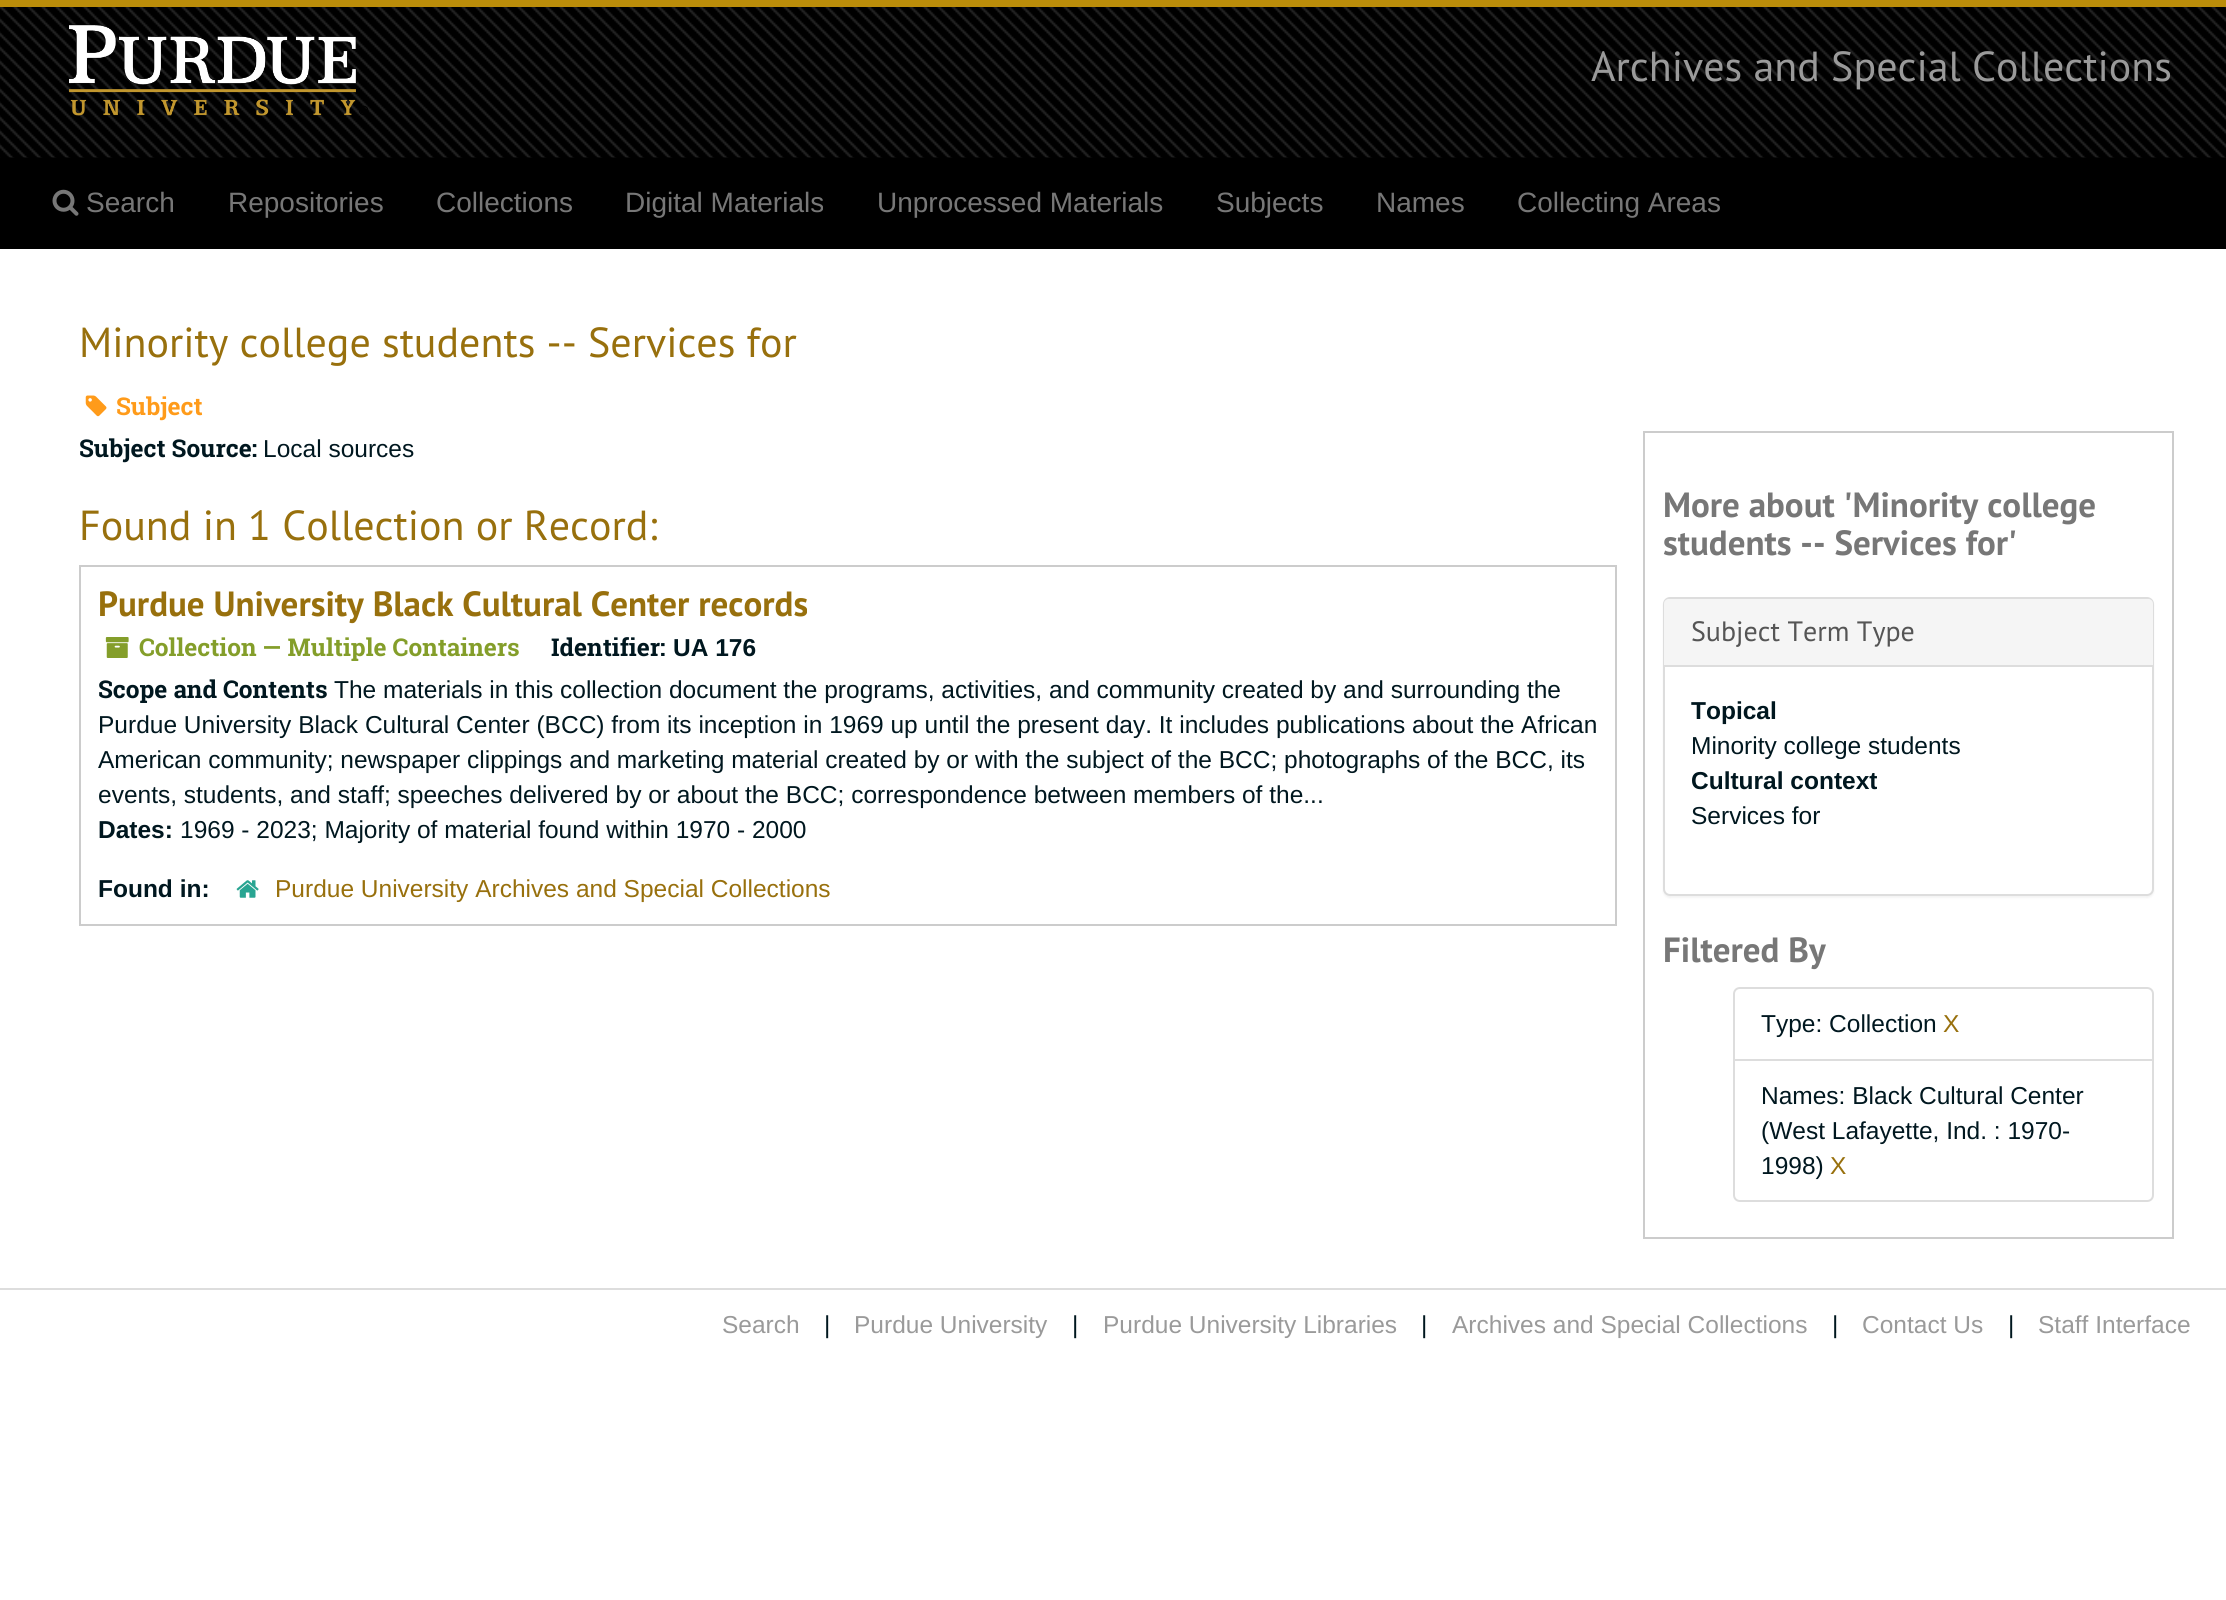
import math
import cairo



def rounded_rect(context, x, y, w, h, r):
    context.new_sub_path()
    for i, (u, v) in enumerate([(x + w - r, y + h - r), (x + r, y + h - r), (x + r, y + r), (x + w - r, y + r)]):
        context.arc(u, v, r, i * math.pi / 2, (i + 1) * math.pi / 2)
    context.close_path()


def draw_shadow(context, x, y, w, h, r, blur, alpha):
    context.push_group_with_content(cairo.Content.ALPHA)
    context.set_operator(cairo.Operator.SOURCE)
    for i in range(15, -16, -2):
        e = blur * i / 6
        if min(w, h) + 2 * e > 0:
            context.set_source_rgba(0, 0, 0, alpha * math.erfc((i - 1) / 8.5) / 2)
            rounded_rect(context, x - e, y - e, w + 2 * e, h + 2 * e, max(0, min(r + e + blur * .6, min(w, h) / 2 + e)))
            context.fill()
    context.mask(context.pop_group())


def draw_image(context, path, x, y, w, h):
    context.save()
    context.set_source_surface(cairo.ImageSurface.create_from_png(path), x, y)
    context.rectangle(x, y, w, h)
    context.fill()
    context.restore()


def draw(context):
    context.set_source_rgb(1, 1, 1)
    context.paint()
    context.set_source_rgb(0, 0, 0)
    context.rectangle(0, 157, 2226, 92)
    context.fill()
    draw_image(context, "images/1.png", 0, 7, 2226, 151)
    context.set_source_rgb(187 / 255, 141 / 255, 10 / 255)
    context.rectangle(0, 0, 2226, 7)
    context.fill()
    draw_image(context, "images/2.png", 69, 24, 300, 92)
    draw_image(context, "images/3.png", 52, 189, 27, 27)
    draw_image(context, "images/4.png", 85, 395, 22, 22)
    context.rectangle(80, 566, 1536, 359)
    context.set_source_rgb(204 / 255, 204 / 255, 204 / 255)
    context.stroke()
    draw_image(context, "images/5.png", 105, 637, 24, 21)
    draw_image(context, "images/6.png", 236, 880, 23, 18)
    context.rectangle(1644, 432, 529, 806)
    context.stroke()
    context.set_source_rgb(0, 0, 0)
    draw_shadow(context, 1663, 599, 491, 299, 7, 1, 0.05)
    context.set_source_rgb(1, 1, 1)
    rounded_rect(context, 1664, 598, 489, 297, 6)
    context.fill_preserve()
    context.set_source_rgb(221 / 255, 221 / 255, 221 / 255)
    context.stroke()
    context.set_source_rgb(245 / 255, 245 / 255, 245 / 255)
    context.new_path()
    context.move_to(1669, 599)
    context.line_to(2148, 599)
    context.curve_to(2151, 599, 2153, 601, 2153, 604)
    context.line_to(2153, 665)
    context.line_to(1664, 665)
    context.line_to(1664, 604)
    context.curve_to(1664, 601, 1666, 599, 1669, 599)
    context.close_path()
    context.fill()
    context.set_source_rgb(221 / 255, 221 / 255, 221 / 255)
    context.rectangle(1664, 665, 489, 2)
    context.fill()
    context.new_path()
    context.move_to(1740, 988)
    context.line_to(2147, 988)
    context.curve_to(2150.5, 988, 2153, 990.5, 2153, 994)
    context.line_to(2153, 1060)
    context.line_to(1734, 1060)
    context.line_to(1734, 994)
    context.curve_to(1734, 990.5, 1736.5, 988, 1740, 988)
    context.close_path()
    context.stroke()
    context.set_source_rgb(1, 1, 1)
    context.new_path()
    context.move_to(1734, 1060)
    context.line_to(2153, 1060)
    context.line_to(2153, 1195)
    context.curve_to(2153, 1198.5, 2150.5, 1201, 2147, 1201)
    context.line_to(1740, 1201)
    context.curve_to(1736.5, 1201, 1734, 1198.5, 1734, 1195)
    context.close_path()
    context.fill_preserve()
    context.set_source_rgb(221 / 255, 221 / 255, 221 / 255)
    context.stroke()
    context.rectangle(0, 1288, 2226, 2)
    context.fill()
    context.select_font_face("PT Sans")
    context.set_font_size(42)
    context.set_source_rgb(154 / 255, 154 / 255, 154 / 255)
    context.move_to(1591, 81)
    context.show_text("Archives and Special Collections")
    context.select_font_face("Liberation Sans")
    context.set_font_size(28)
    context.set_source_rgb(119 / 255, 119 / 255, 119 / 255)
    context.move_to(86, 212)
    context.show_text("Search")
    context.move_to(228, 212)
    context.show_text("Repositories")
    context.move_to(436, 212)
    context.show_text("Collections")
    context.move_to(625, 212)
    context.show_text("Digital Materials")
    context.move_to(877, 212)
    context.show_text("Unprocessed Materials")
    context.move_to(1216, 212)
    context.show_text("Subjects")
    context.move_to(1376, 212)
    context.show_text("Names")
    context.move_to(1517, 212)
    context.show_text("Collecting Areas")
    context.select_font_face("PT Sans")
    context.set_font_size(42)
    context.set_source_rgb(152 / 255, 112 / 255, 13 / 255)
    context.move_to(79, 357)
    context.show_text("Minority college students -- Services for")
    context.select_font_face("Roboto Slab", cairo.FontSlant.NORMAL, cairo.FontWeight.BOLD)
    context.set_font_size(24.5)
    context.set_source_rgb(1, 155 / 255, 26 / 255)
    context.move_to(116, 415)
    context.show_text("Subject")
    context.set_source_rgb(0, 23 / 255, 31 / 255)
    context.move_to(79, 457)
    context.show_text("Subject Source:")
    context.select_font_face("Liberation Sans")
    context.move_to(263, 457)
    context.show_text("Local sources")
    context.select_font_face("PT Sans")
    context.set_font_size(42)
    context.set_source_rgb(152 / 255, 112 / 255, 13 / 255)
    context.move_to(79, 540)
    context.show_text("Found in 1 Collection or Record:")
    context.select_font_face("PT Sans", cairo.FontSlant.NORMAL, cairo.FontWeight.BOLD)
    context.set_font_size(35)
    context.move_to(98, 616)
    context.show_text("Purdue University Black Cultural Center records")
    context.select_font_face("Roboto Slab", cairo.FontSlant.NORMAL, cairo.FontWeight.BOLD)
    context.set_font_size(24.5)
    context.set_source_rgb(132 / 255, 158 / 255, 42 / 255)
    context.move_to(139, 656)
    context.show_text("Collection — Multiple Containers")
    context.set_source_rgb(0, 23 / 255, 31 / 255)
    context.move_to(551, 656)
    context.show_text("Identifier:")
    context.select_font_face("Liberation Sans", cairo.FontSlant.NORMAL, cairo.FontWeight.BOLD)
    context.move_to(673, 656)
    context.show_text("UA 176")
    context.select_font_face("Roboto Slab", cairo.FontSlant.NORMAL, cairo.FontWeight.BOLD)
    context.move_to(98, 698)
    context.show_text("Scope and Contents")
    context.select_font_face("Liberation Sans")
    context.move_to(334, 698)
    context.show_text("The materials in this collection document the programs, activities, and community created by and surrounding the")
    context.move_to(98, 733)
    context.show_text("Purdue University Black Cultural Center (BCC) from its inception in 1969 up until the present day. It includes publications about the African")
    context.move_to(98, 768)
    context.show_text("American community; newspaper clippings and marketing material created by or with the subject of the BCC; photographs of the BCC, its")
    context.move_to(98, 803)
    context.show_text("events, students, and staff; speeches delivered by or about the BCC; correspondence between members of the...")
    context.select_font_face("Liberation Sans", cairo.FontSlant.NORMAL, cairo.FontWeight.BOLD)
    context.move_to(98, 838)
    context.show_text("Dates:")
    context.select_font_face("Liberation Sans")
    context.move_to(180, 838)
    context.show_text("1969 - 2023; Majority of material found within 1970 - 2000")
    context.select_font_face("Liberation Sans", cairo.FontSlant.NORMAL, cairo.FontWeight.BOLD)
    context.move_to(98, 897)
    context.show_text("Found in:")
    context.select_font_face("Liberation Sans")
    context.set_source_rgb(152 / 255, 112 / 255, 13 / 255)
    context.move_to(275, 897)
    context.show_text("Purdue University Archives and Special Collections")
    context.select_font_face("PT Sans", cairo.FontSlant.NORMAL, cairo.FontWeight.BOLD)
    context.set_font_size(35)
    context.set_source_rgb(119 / 255, 119 / 255, 119 / 255)
    context.move_to(1663, 517)
    context.show_text("More about 'Minority college")
    context.move_to(1663, 555)
    context.show_text("students -- Services for'")
    context.select_font_face("PT Sans")
    context.set_font_size(28)
    context.set_source_rgb(85 / 255, 85 / 255, 85 / 255)
    context.move_to(1691, 641)
    context.show_text("Subject Term Type")
    context.select_font_face("Liberation Sans", cairo.FontSlant.NORMAL, cairo.FontWeight.BOLD)
    context.set_font_size(24.5)
    context.set_source_rgb(0, 23 / 255, 31 / 255)
    context.move_to(1691, 719)
    context.show_text("Topical")
    context.select_font_face("Liberation Sans")
    context.move_to(1691, 754)
    context.show_text("Minority college students")
    context.select_font_face("Liberation Sans", cairo.FontSlant.NORMAL, cairo.FontWeight.BOLD)
    context.move_to(1691, 789)
    context.show_text("Cultural context")
    context.select_font_face("Liberation Sans")
    context.move_to(1691, 824)
    context.show_text("Services for")
    context.select_font_face("PT Sans", cairo.FontSlant.NORMAL, cairo.FontWeight.BOLD)
    context.set_font_size(35)
    context.set_source_rgb(119 / 255, 119 / 255, 119 / 255)
    context.move_to(1663, 962)
    context.show_text("Filtered By")
    context.select_font_face("Liberation Sans")
    context.set_font_size(24.5)
    context.set_source_rgb(0, 23 / 255, 31 / 255)
    context.move_to(1761, 1032)
    context.show_text("Type: Collection")
    context.set_source_rgb(152 / 255, 112 / 255, 13 / 255)
    context.move_to(1943, 1032)
    context.show_text("X")
    context.set_source_rgb(0, 23 / 255, 31 / 255)
    context.move_to(1761, 1104)
    context.show_text("Names: Black Cultural Center")
    context.move_to(1761, 1139)
    context.show_text("(West Lafayette, Ind. : 1970-")
    context.move_to(1761, 1174)
    context.show_text("1998)")
    context.set_source_rgb(152 / 255, 112 / 255, 13 / 255)
    context.move_to(1830, 1174)
    context.show_text("X")
    context.set_source_rgb(154 / 255, 154 / 255, 154 / 255)
    context.move_to(722, 1333)
    context.show_text("Search")
    context.set_source_rgb(0, 23 / 255, 31 / 255)
    context.move_to(824, 1333)
    context.show_text("|")
    context.set_source_rgb(154 / 255, 154 / 255, 154 / 255)
    context.move_to(854, 1333)
    context.show_text("Purdue University")
    context.set_source_rgb(0, 23 / 255, 31 / 255)
    context.move_to(1072, 1333)
    context.show_text("|")
    context.set_source_rgb(154 / 255, 154 / 255, 154 / 255)
    context.move_to(1103, 1333)
    context.show_text("Purdue University Libraries")
    context.set_source_rgb(0, 23 / 255, 31 / 255)
    context.move_to(1421, 1333)
    context.show_text("|")
    context.set_source_rgb(154 / 255, 154 / 255, 154 / 255)
    context.move_to(1452, 1333)
    context.show_text("Archives and Special Collections")
    context.set_source_rgb(0, 23 / 255, 31 / 255)
    context.move_to(1832, 1333)
    context.show_text("|")
    context.set_source_rgb(154 / 255, 154 / 255, 154 / 255)
    context.move_to(1862, 1333)
    context.show_text("Contact Us")
    context.set_source_rgb(0, 23 / 255, 31 / 255)
    context.move_to(2008, 1333)
    context.show_text("|")
    context.set_source_rgb(154 / 255, 154 / 255, 154 / 255)
    context.move_to(2038, 1333)
    context.show_text("Staff Interface")


surface = cairo.ImageSurface(cairo.Format.RGB24, 2226, 1600)
context = cairo.Context(surface)
options = cairo.FontOptions()
options.set_hint_metrics(cairo.HintMetrics.OFF)
options.set_hint_style(cairo.HintStyle.NONE)
context.set_font_options(options)
context.set_miter_limit(4)
draw(context)
surface.write_to_png("out.png")
